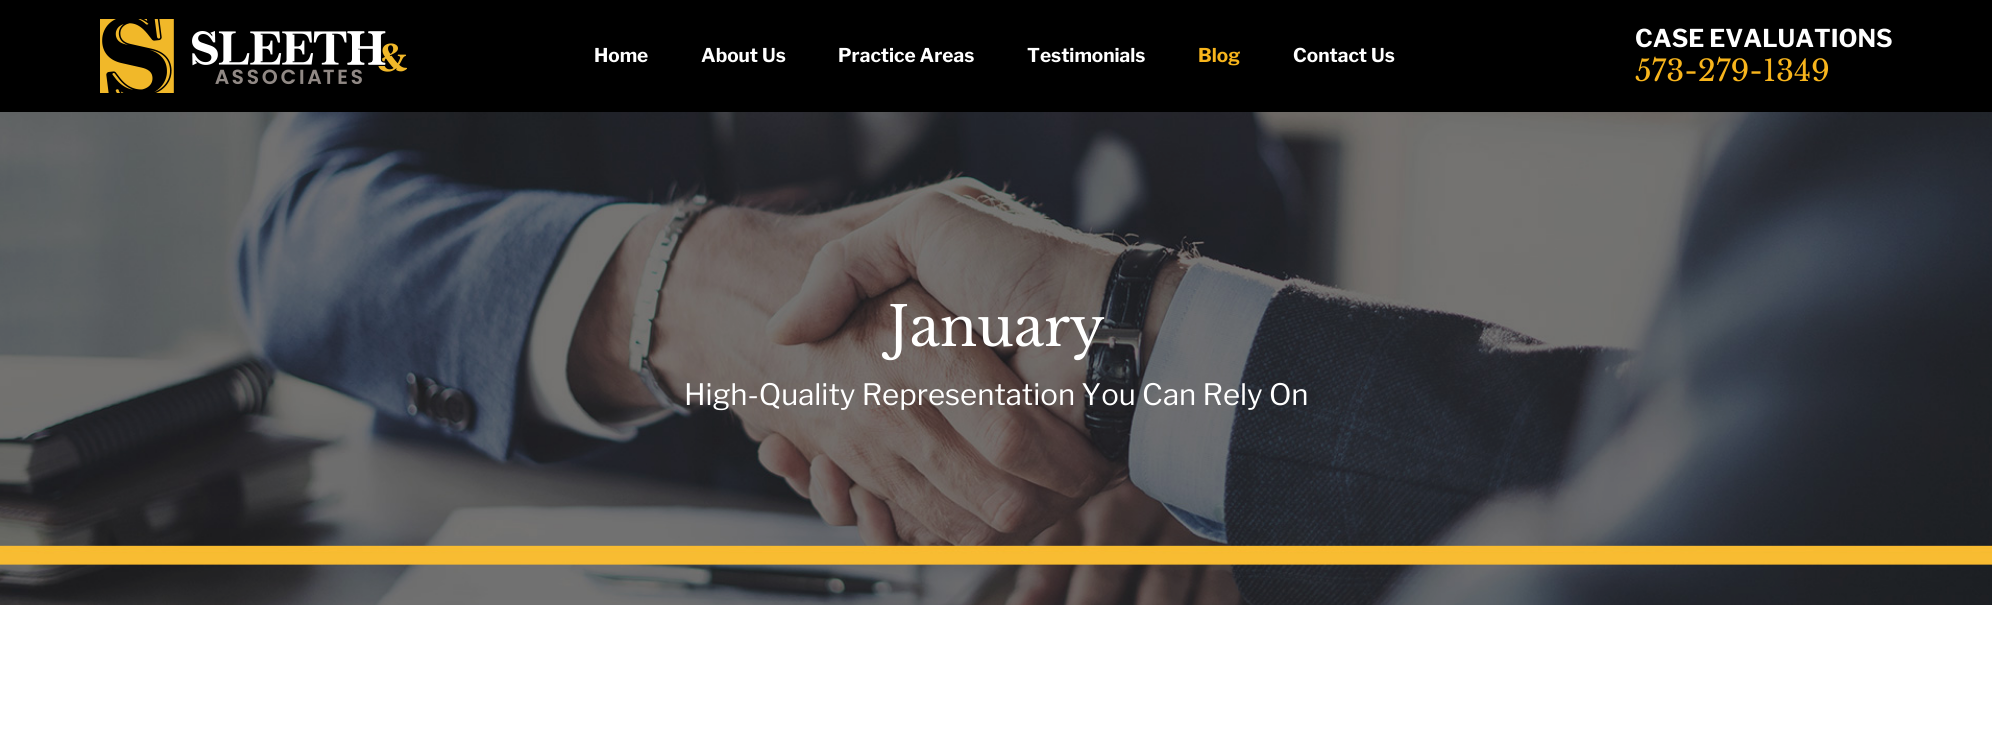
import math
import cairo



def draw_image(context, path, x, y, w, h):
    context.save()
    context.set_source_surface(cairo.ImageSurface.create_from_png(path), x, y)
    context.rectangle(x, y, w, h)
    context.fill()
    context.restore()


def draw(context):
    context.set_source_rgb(1, 1, 1)
    context.paint()
    context.set_source_rgb(0, 0, 0)
    context.rectangle(0, 0, 1992, 112)
    context.fill()
    draw_image(context, "images/1.png", 100, 19, 307, 74)
    draw_image(context, "images/2.png", 0, 112, 1992, 493)
    context.select_font_face("Libre Franklin", cairo.FontSlant.NORMAL, cairo.FontWeight.BOLD)
    context.set_font_size(19)
    context.set_source_rgb(1, 1, 1)
    context.move_to(594, 62)
    context.show_text("Home")
    context.move_to(701, 62)
    context.show_text("About Us")
    context.move_to(838, 62)
    context.show_text("Practice Areas")
    context.move_to(1027, 62)
    context.show_text("Testimonials")
    context.set_source_rgb(248 / 255, 181 / 255, 28 / 255)
    context.move_to(1198, 62)
    context.show_text("Blog")
    context.set_source_rgb(1, 1, 1)
    context.move_to(1293, 62)
    context.show_text("Contact Us")
    context.set_font_size(24.5)
    context.move_to(1635, 47)
    context.show_text("CASE EVALUATIONS")
    context.select_font_face("Libre Baskerville")
    context.set_font_size(29.25)
    context.set_source_rgb(248 / 255, 181 / 255, 28 / 255)
    context.move_to(1635, 81)
    context.show_text("573-279-1349")
    context.set_font_size(54.5)
    context.set_source_rgb(1, 1, 1)
    context.move_to(888, 346)
    context.show_text("January")
    context.select_font_face("Libre Franklin")
    context.set_font_size(29.4)
    context.move_to(684, 405)
    context.show_text("High-Quality Representation You Can Rely On")


surface = cairo.ImageSurface(cairo.Format.RGB24, 1992, 729)
context = cairo.Context(surface)
options = cairo.FontOptions()
options.set_hint_metrics(cairo.HintMetrics.OFF)
options.set_hint_style(cairo.HintStyle.NONE)
context.set_font_options(options)
context.set_miter_limit(4)
draw(context)
surface.write_to_png("out.png")
